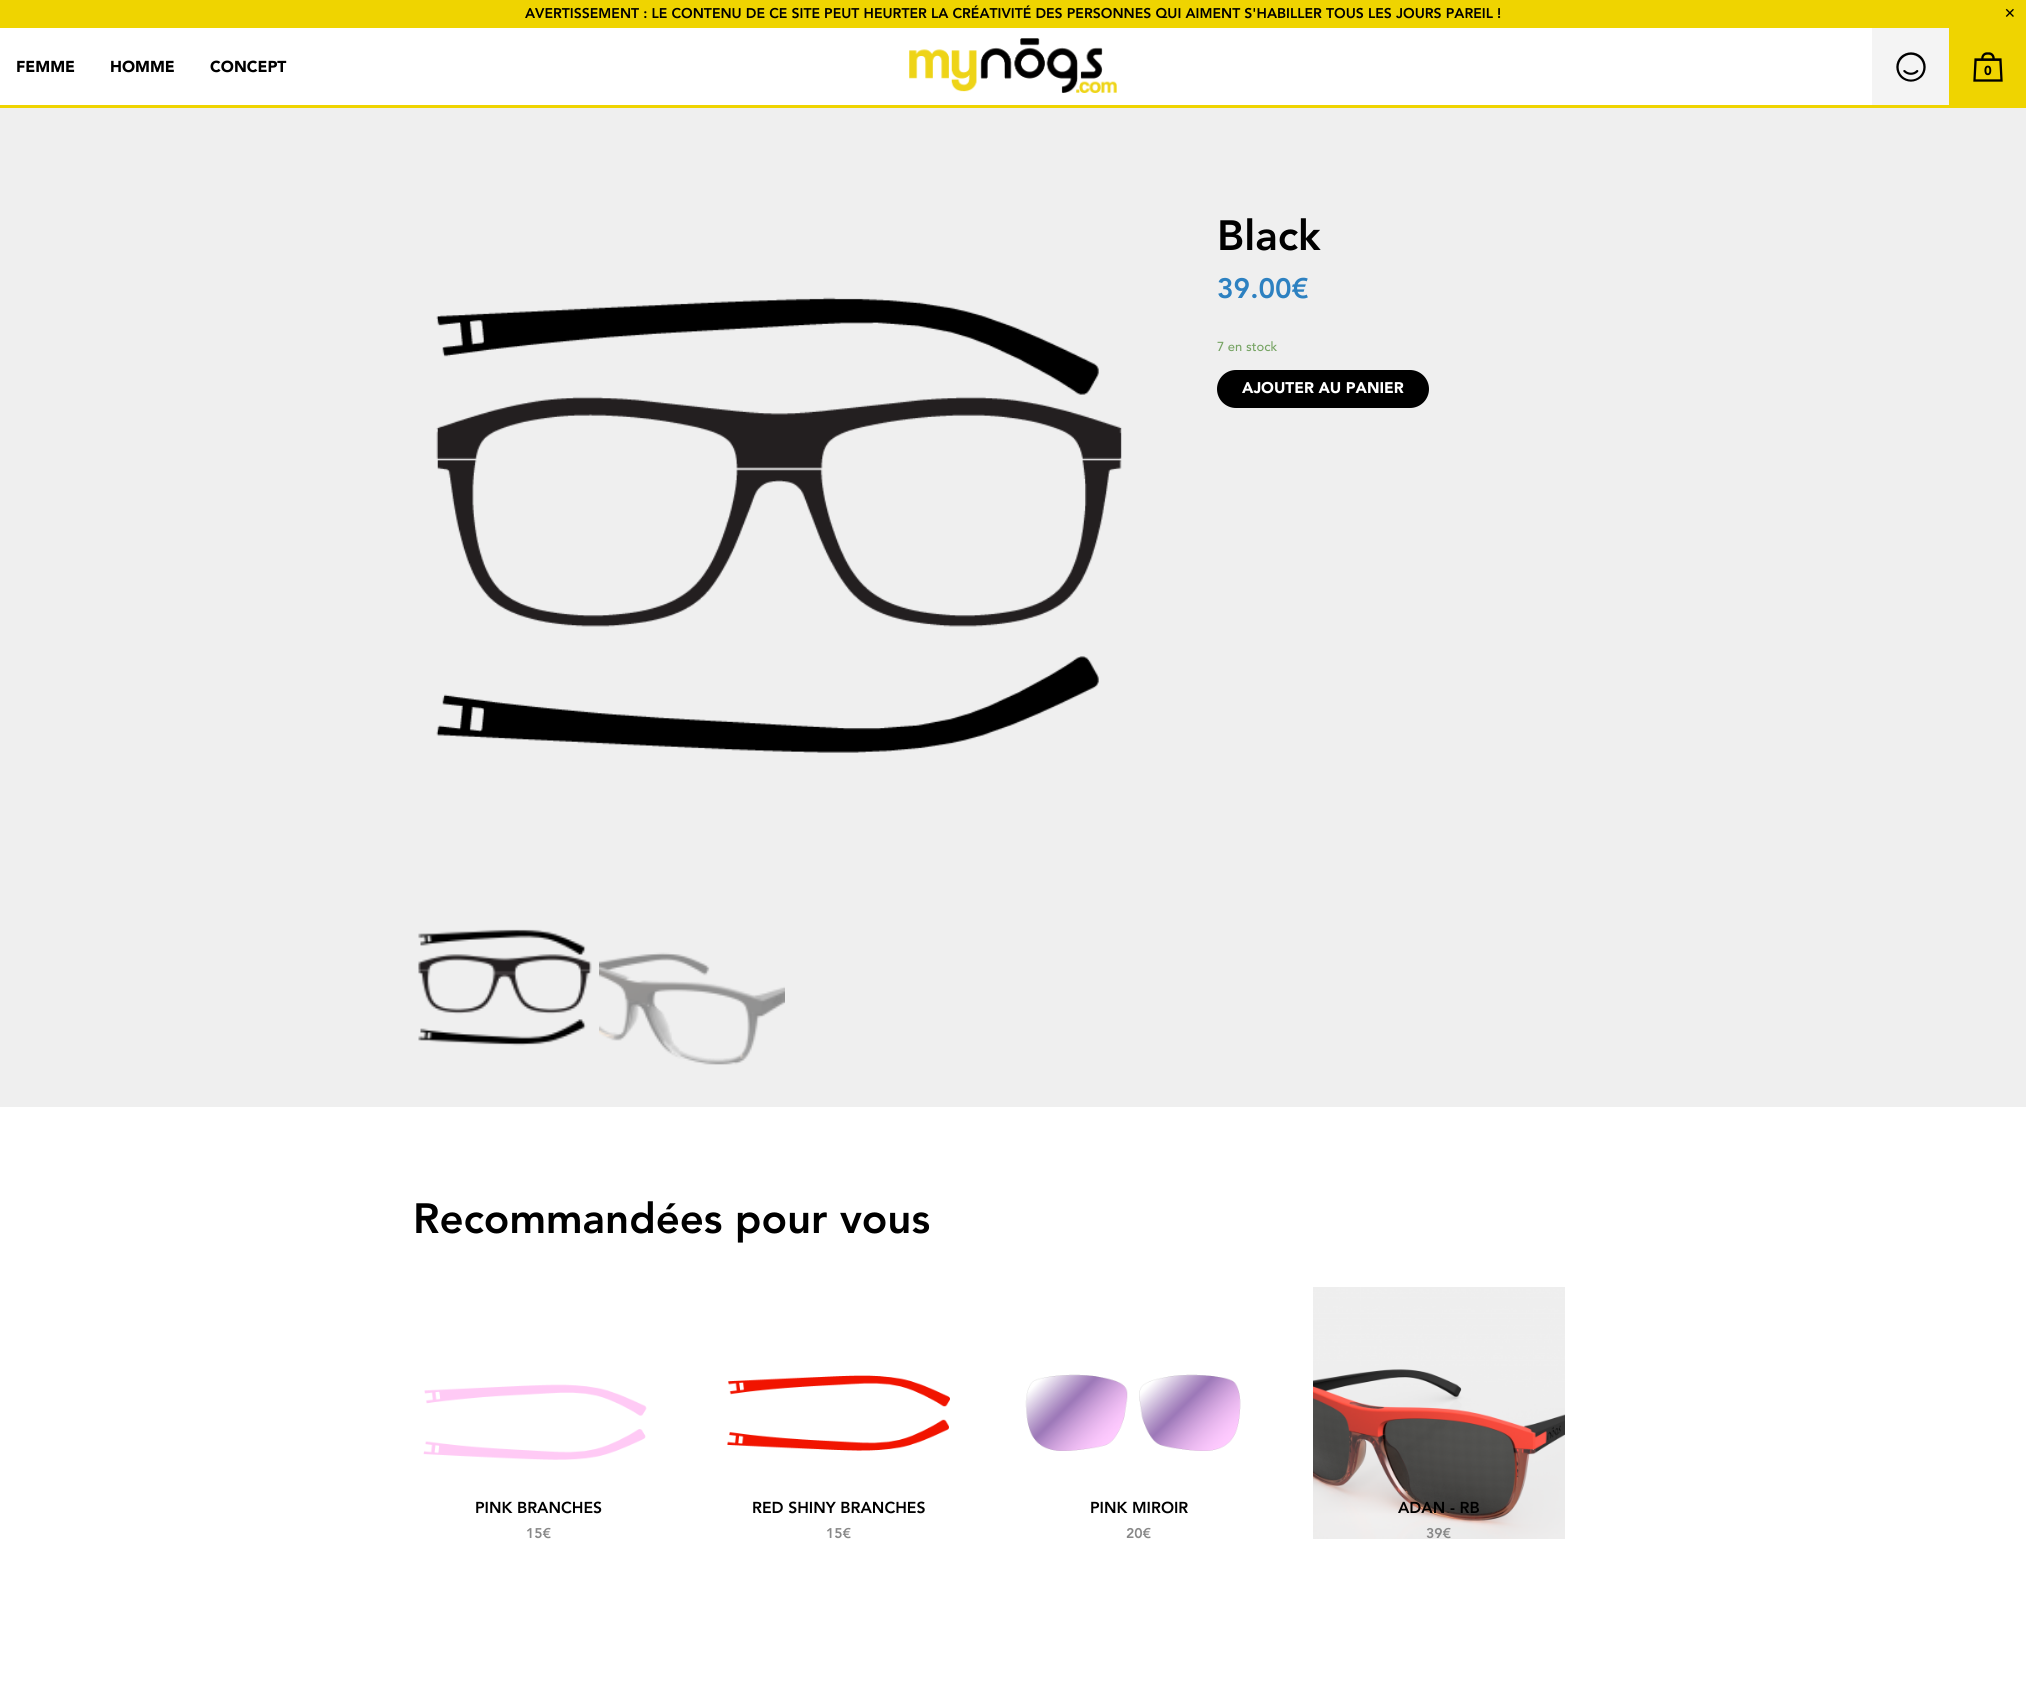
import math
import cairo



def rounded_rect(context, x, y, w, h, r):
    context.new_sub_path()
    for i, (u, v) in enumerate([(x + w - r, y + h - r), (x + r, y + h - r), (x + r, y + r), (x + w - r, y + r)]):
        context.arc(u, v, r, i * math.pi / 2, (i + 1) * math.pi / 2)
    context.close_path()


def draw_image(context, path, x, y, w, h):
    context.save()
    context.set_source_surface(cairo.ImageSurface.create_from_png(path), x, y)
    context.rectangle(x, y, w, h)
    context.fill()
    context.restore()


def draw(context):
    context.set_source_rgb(1, 1, 1)
    context.paint()
    context.set_source_rgb(239 / 255, 212 / 255, 0)
    context.rectangle(0, 0, 2026, 28)
    context.fill()
    context.rectangle(0, 105, 2026, 3)
    context.fill()
    draw_image(context, "images/1.png", 909, 38, 208, 55)
    context.set_source_rgb(244 / 255, 244 / 255, 244 / 255)
    context.rectangle(1872, 28, 77, 77)
    context.fill()
    draw_image(context, "images/2.png", 1896, 52, 30, 30)
    context.set_source_rgb(239 / 255, 212 / 255, 0)
    context.rectangle(1949, 28, 77, 77)
    context.fill()
    draw_image(context, "images/3.png", 1973, 52, 30, 30)
    context.set_source_rgb(239 / 255, 239 / 255, 239 / 255)
    context.rectangle(0, 108, 2026, 999)
    context.fill()
    draw_image(context, "images/4.png", 436, 297, 686, 456)
    draw_image(context, "images/5.png", 418, 929, 174, 117)
    draw_image(context, "images/6.png", 599, 952, 186, 113)
    context.set_source_rgb(0, 0, 0)
    rounded_rect(context, 1218, 371, 210, 36, 18)
    context.fill_preserve()
    context.stroke()
    draw_image(context, "images/7.png", 423, 1384, 224, 76)
    draw_image(context, "images/8.png", 727, 1375, 223, 76)
    draw_image(context, "images/9.png", 1025, 1374, 216, 77)
    draw_image(context, "images/10.png", 1313, 1287, 252, 252)
    context.select_font_face("Avenir Black")
    context.set_font_size(14)
    context.move_to(525, 18)
    context.show_text("AVERTISSEMENT : LE CONTENU DE CE SITE PEUT HEURTER LA CRÉATIVITÉ DES PERSONNES QUI AIMENT S'HABILLER TOUS LES JOURS PAREIL !")
    context.select_font_face("DejaVu Sans")
    context.move_to(2004, 18)
    context.show_text("✕")
    context.select_font_face("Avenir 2 Black")
    context.set_font_size(15.75)
    context.move_to(16, 72)
    context.show_text("FEMME")
    context.move_to(110, 72)
    context.show_text("HOMME")
    context.move_to(210, 72)
    context.show_text("CONCEPT")
    context.set_font_size(13)
    context.move_to(1984, 75)
    context.show_text("0")
    context.select_font_face("Avenir Black")
    context.set_font_size(42)
    context.move_to(1217, 250)
    context.show_text("Black")
    context.set_font_size(28)
    context.set_source_rgb(45 / 255, 129 / 255, 193 / 255)
    context.move_to(1217, 298)
    context.show_text("39.00€")
    context.select_font_face("Avenir Medium")
    context.set_font_size(13)
    context.set_source_rgb(119 / 255, 164 / 255, 100 / 255)
    context.move_to(1217, 351)
    context.show_text("7 en stock")
    context.select_font_face("Avenir 2 Black")
    context.set_font_size(15.4)
    context.set_source_rgb(1, 1, 1)
    context.move_to(1242, 393)
    context.show_text("AJOUTER AU PANIER")
    context.select_font_face("Avenir Black")
    context.set_font_size(42)
    context.set_source_rgb(0, 0, 0)
    context.move_to(413, 1233)
    context.show_text("Recommandées pour vous")
    context.set_font_size(15.75)
    context.move_to(475, 1513)
    context.show_text("PINK BRANCHES")
    context.set_font_size(14)
    context.set_source_rgb(136 / 255, 136 / 255, 136 / 255)
    context.move_to(526, 1538)
    context.show_text("15€")
    context.set_font_size(15.75)
    context.set_source_rgb(0, 0, 0)
    context.move_to(752, 1513)
    context.show_text("RED SHINY BRANCHES")
    context.set_font_size(14)
    context.set_source_rgb(136 / 255, 136 / 255, 136 / 255)
    context.move_to(826, 1538)
    context.show_text("15€")
    context.set_font_size(15.75)
    context.set_source_rgb(0, 0, 0)
    context.move_to(1090, 1513)
    context.show_text("PINK MIROIR")
    context.set_font_size(14)
    context.set_source_rgb(136 / 255, 136 / 255, 136 / 255)
    context.move_to(1126, 1538)
    context.show_text("20€")
    context.set_font_size(15.75)
    context.set_source_rgb(0, 0, 0)
    context.move_to(1398, 1513)
    context.show_text("ADAN - RB")
    context.set_font_size(14)
    context.set_source_rgb(136 / 255, 136 / 255, 136 / 255)
    context.move_to(1426, 1538)
    context.show_text("39€")


surface = cairo.ImageSurface(cairo.Format.RGB24, 2026, 1697)
context = cairo.Context(surface)
options = cairo.FontOptions()
options.set_hint_metrics(cairo.HintMetrics.OFF)
options.set_hint_style(cairo.HintStyle.NONE)
context.set_font_options(options)
context.set_miter_limit(4)
draw(context)
surface.write_to_png("out.png")
